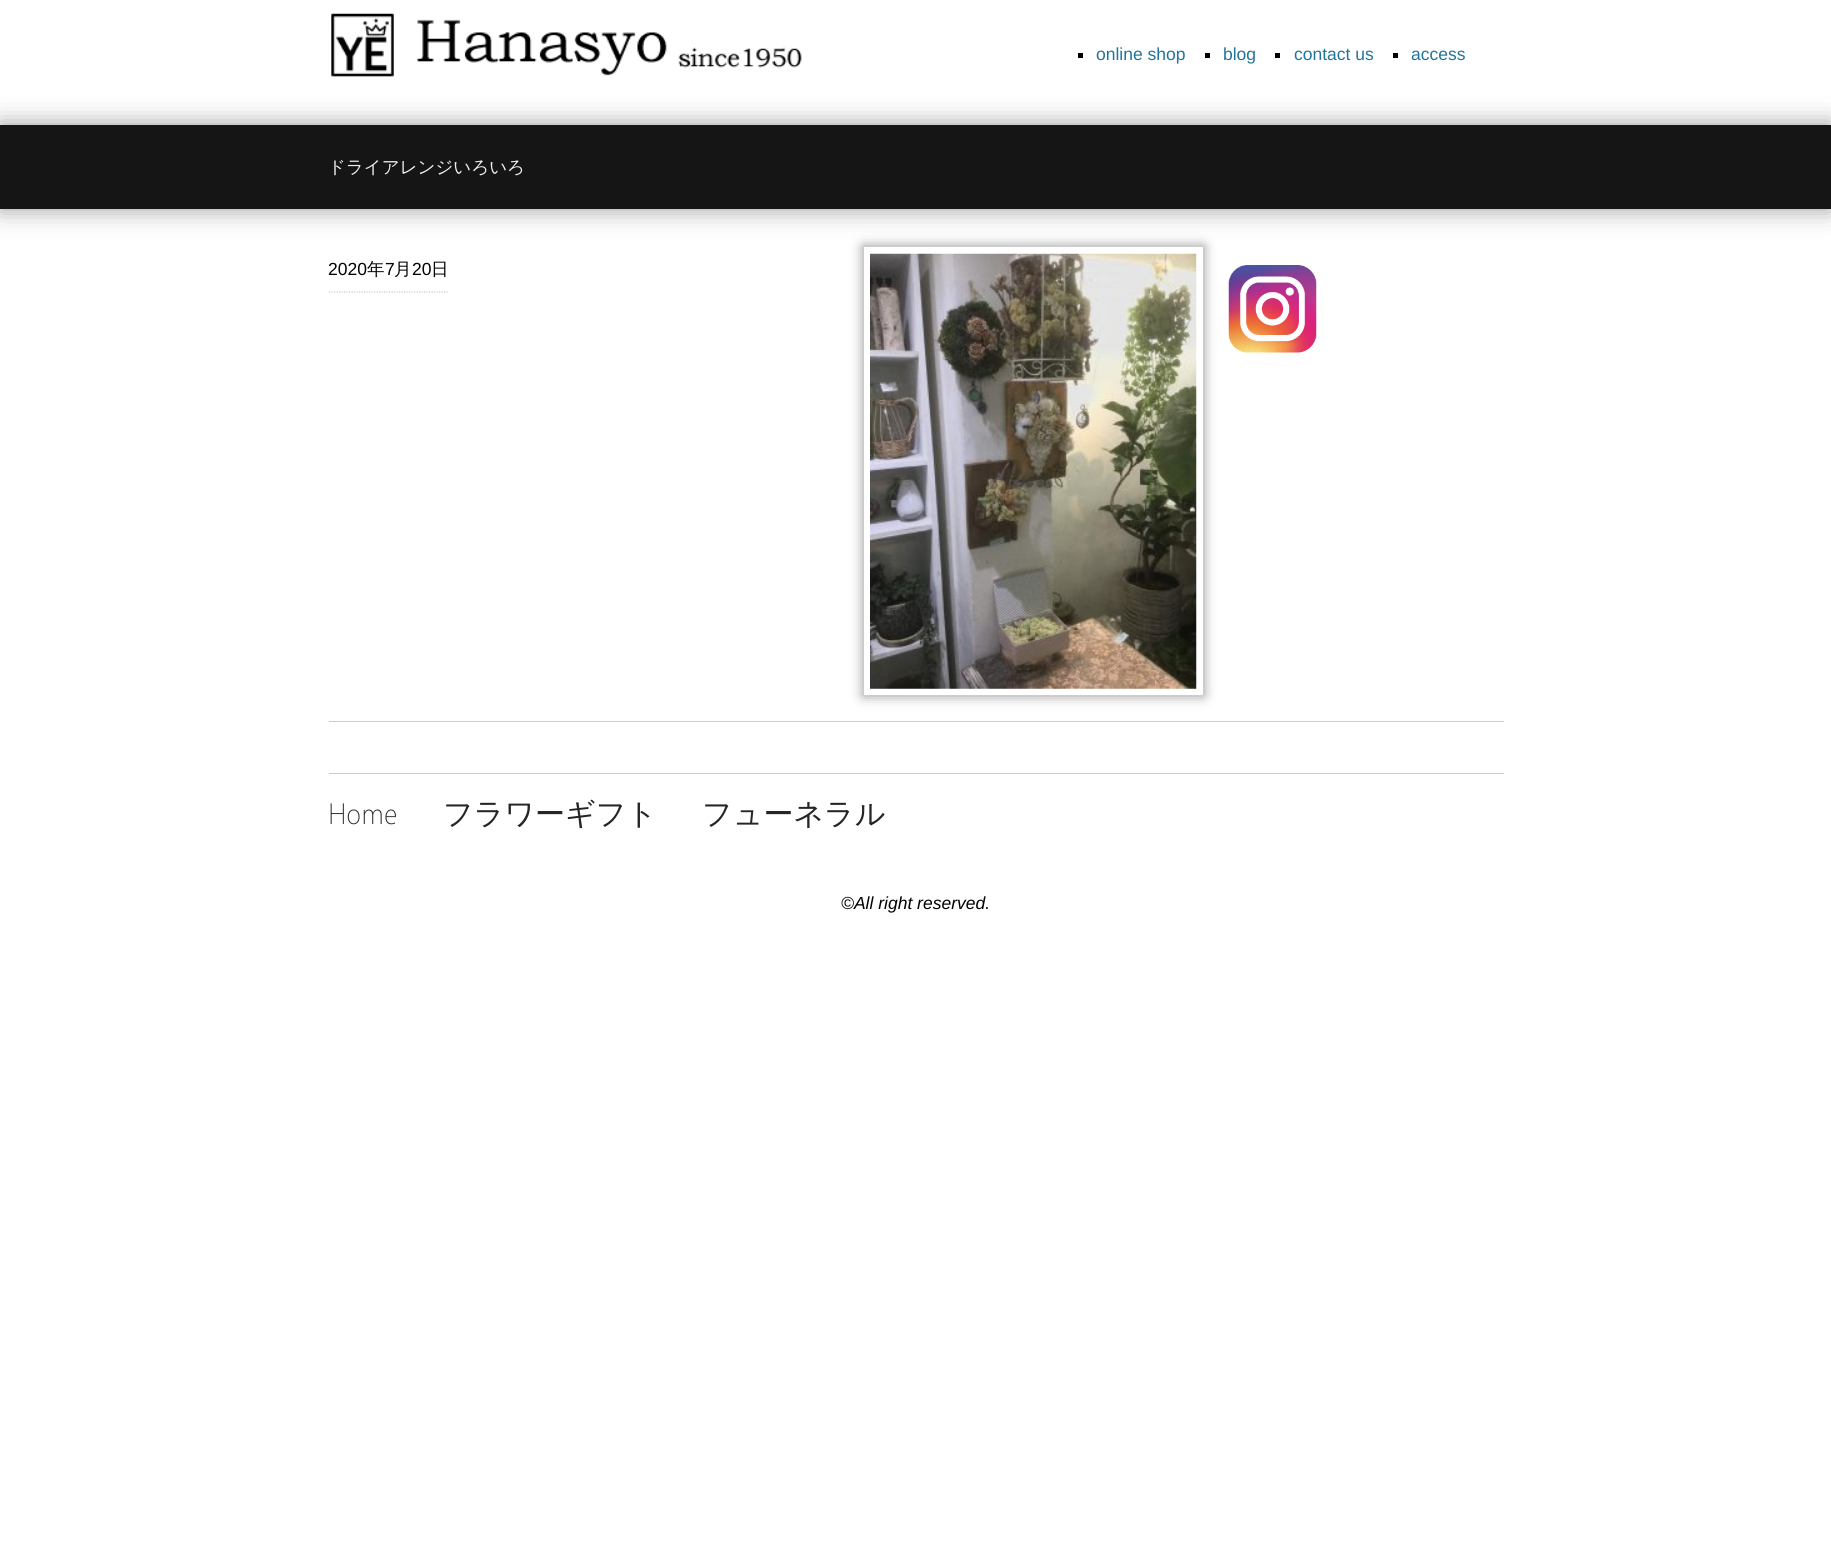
import math
import cairo



def rounded_rect(context, x, y, w, h, r):
    context.new_sub_path()
    for i, (u, v) in enumerate([(x + w - r, y + h - r), (x + r, y + h - r), (x + r, y + r), (x + w - r, y + r)]):
        context.arc(u, v, r, i * math.pi / 2, (i + 1) * math.pi / 2)
    context.close_path()


def draw_shadow(context, x, y, w, h, r, blur, alpha):
    context.push_group_with_content(cairo.Content.ALPHA)
    context.set_operator(cairo.Operator.SOURCE)
    for i in range(15, -16, -2):
        e = blur * i / 6
        if min(w, h) + 2 * e > 0:
            context.set_source_rgba(0, 0, 0, alpha * math.erfc((i - 1) / 8.5) / 2)
            rounded_rect(context, x - e, y - e, w + 2 * e, h + 2 * e, max(0, min(r + e + blur * .6, min(w, h) / 2 + e)))
            context.fill()
    context.mask(context.pop_group())


def draw_image(context, path, x, y, w, h):
    context.save()
    context.set_source_surface(cairo.ImageSurface.create_from_png(path), x, y)
    context.rectangle(x, y, w, h)
    context.fill()
    context.restore()


def draw(context):
    context.set_source_rgb(1, 1, 1)
    context.paint()
    draw_image(context, "images/1.png", 331, 13, 471, 64)
    context.set_source_rgb(0, 0, 0)
    context.rectangle(1078, 53, 5, 5)
    context.fill()
    context.rectangle(1205, 53, 5, 5)
    context.fill()
    context.rectangle(1275, 53, 5, 5)
    context.fill()
    context.rectangle(1393, 53, 5, 5)
    context.fill()
    context.set_source_rgb(153 / 255, 153 / 255, 153 / 255)
    draw_shadow(context, 0, 125, 1831, 84, 0, 12.5, 1)
    context.set_source_rgb(21 / 255, 21 / 255, 21 / 255)
    context.rectangle(0, 125, 1831, 84)
    context.fill()
    context.set_source_rgb(204 / 255, 204 / 255, 204 / 255)
    context.rectangle(329, 721, 1175, 1)
    context.fill()
    context.new_path()
    context.move_to(329, 292)
    context.line_to(449, 292)
    context.set_line_width(1.2)
    context.set_dash([1.25, 1.25])
    context.stroke()
    context.save()
    context.set_fill_rule(cairo.FillRule.EVEN_ODD)
    context.new_path()
    context.move_to(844, 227)
    context.line_to(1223, 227)
    context.line_to(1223, 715)
    context.line_to(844, 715)
    context.close_path()
    context.move_to(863, 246)
    context.line_to(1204, 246)
    context.line_to(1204, 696)
    context.line_to(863, 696)
    context.close_path()
    context.clip()
    context.set_source_rgb(153 / 255, 153 / 255, 153 / 255)
    draw_shadow(context, 863, 246, 341, 450, 0, 6, 1)
    context.restore()
    context.rectangle(863.5, 246.5, 340, 449)
    context.set_line_width(1)
    context.set_dash([])
    context.stroke()
    draw_image(context, "images/2.png", 870, 253, 327, 436)
    draw_image(context, "images/3.png", 1228, 265, 89, 88)
    context.rectangle(329, 773, 1175, 1)
    context.fill()
    context.select_font_face("Liberation Sans")
    context.set_font_size(17.5)
    context.set_source_rgb(33 / 255, 117 / 255, 155 / 255)
    context.move_to(1096, 60)
    context.show_text("online shop")
    context.move_to(1223, 60)
    context.show_text("blog")
    context.move_to(1294, 60)
    context.show_text("contact us")
    context.move_to(1411, 60)
    context.show_text("access")
    context.select_font_face("WenQuanYi Zen Hei Medium")
    context.set_source_rgb(240 / 255, 240 / 255, 240 / 255)
    context.move_to(328, 173)
    context.show_text("ドライアレンジいろいろ")
    context.select_font_face("Liberation Sans")
    context.set_source_rgb(0, 0, 0)
    context.move_to(328, 275)
    context.show_text("2020")
    context.select_font_face("WenQuanYi Zen Hei Medium")
    context.move_to(367, 275)
    context.show_text("年")
    context.select_font_face("Liberation Sans")
    context.move_to(385, 275)
    context.show_text("7")
    context.select_font_face("WenQuanYi Zen Hei Medium")
    context.move_to(394, 275)
    context.show_text("月")
    context.select_font_face("Liberation Sans")
    context.move_to(412, 275)
    context.show_text("20")
    context.select_font_face("WenQuanYi Zen Hei Medium")
    context.move_to(431, 275)
    context.show_text("日")
    context.select_font_face("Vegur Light")
    context.set_font_size(30)
    context.set_source_rgb(37 / 255, 37 / 255, 37 / 255)
    context.move_to(328, 824)
    context.show_text("Home")
    context.select_font_face("WenQuanYi Zen Hei Medium")
    context.move_to(443, 824)
    context.show_text("フラワーギフト")
    context.move_to(702, 824)
    context.show_text("フューネラル")
    context.select_font_face("Liberation Sans", cairo.FontSlant.ITALIC)
    context.set_font_size(17.5)
    context.set_source_rgb(0, 0, 0)
    context.move_to(841, 909)
    context.show_text("©All right reserved.")


surface = cairo.ImageSurface(cairo.Format.RGB24, 1831, 1563)
context = cairo.Context(surface)
options = cairo.FontOptions()
options.set_hint_metrics(cairo.HintMetrics.OFF)
options.set_hint_style(cairo.HintStyle.NONE)
context.set_font_options(options)
context.set_miter_limit(4)
draw(context)
surface.write_to_png("out.png")
